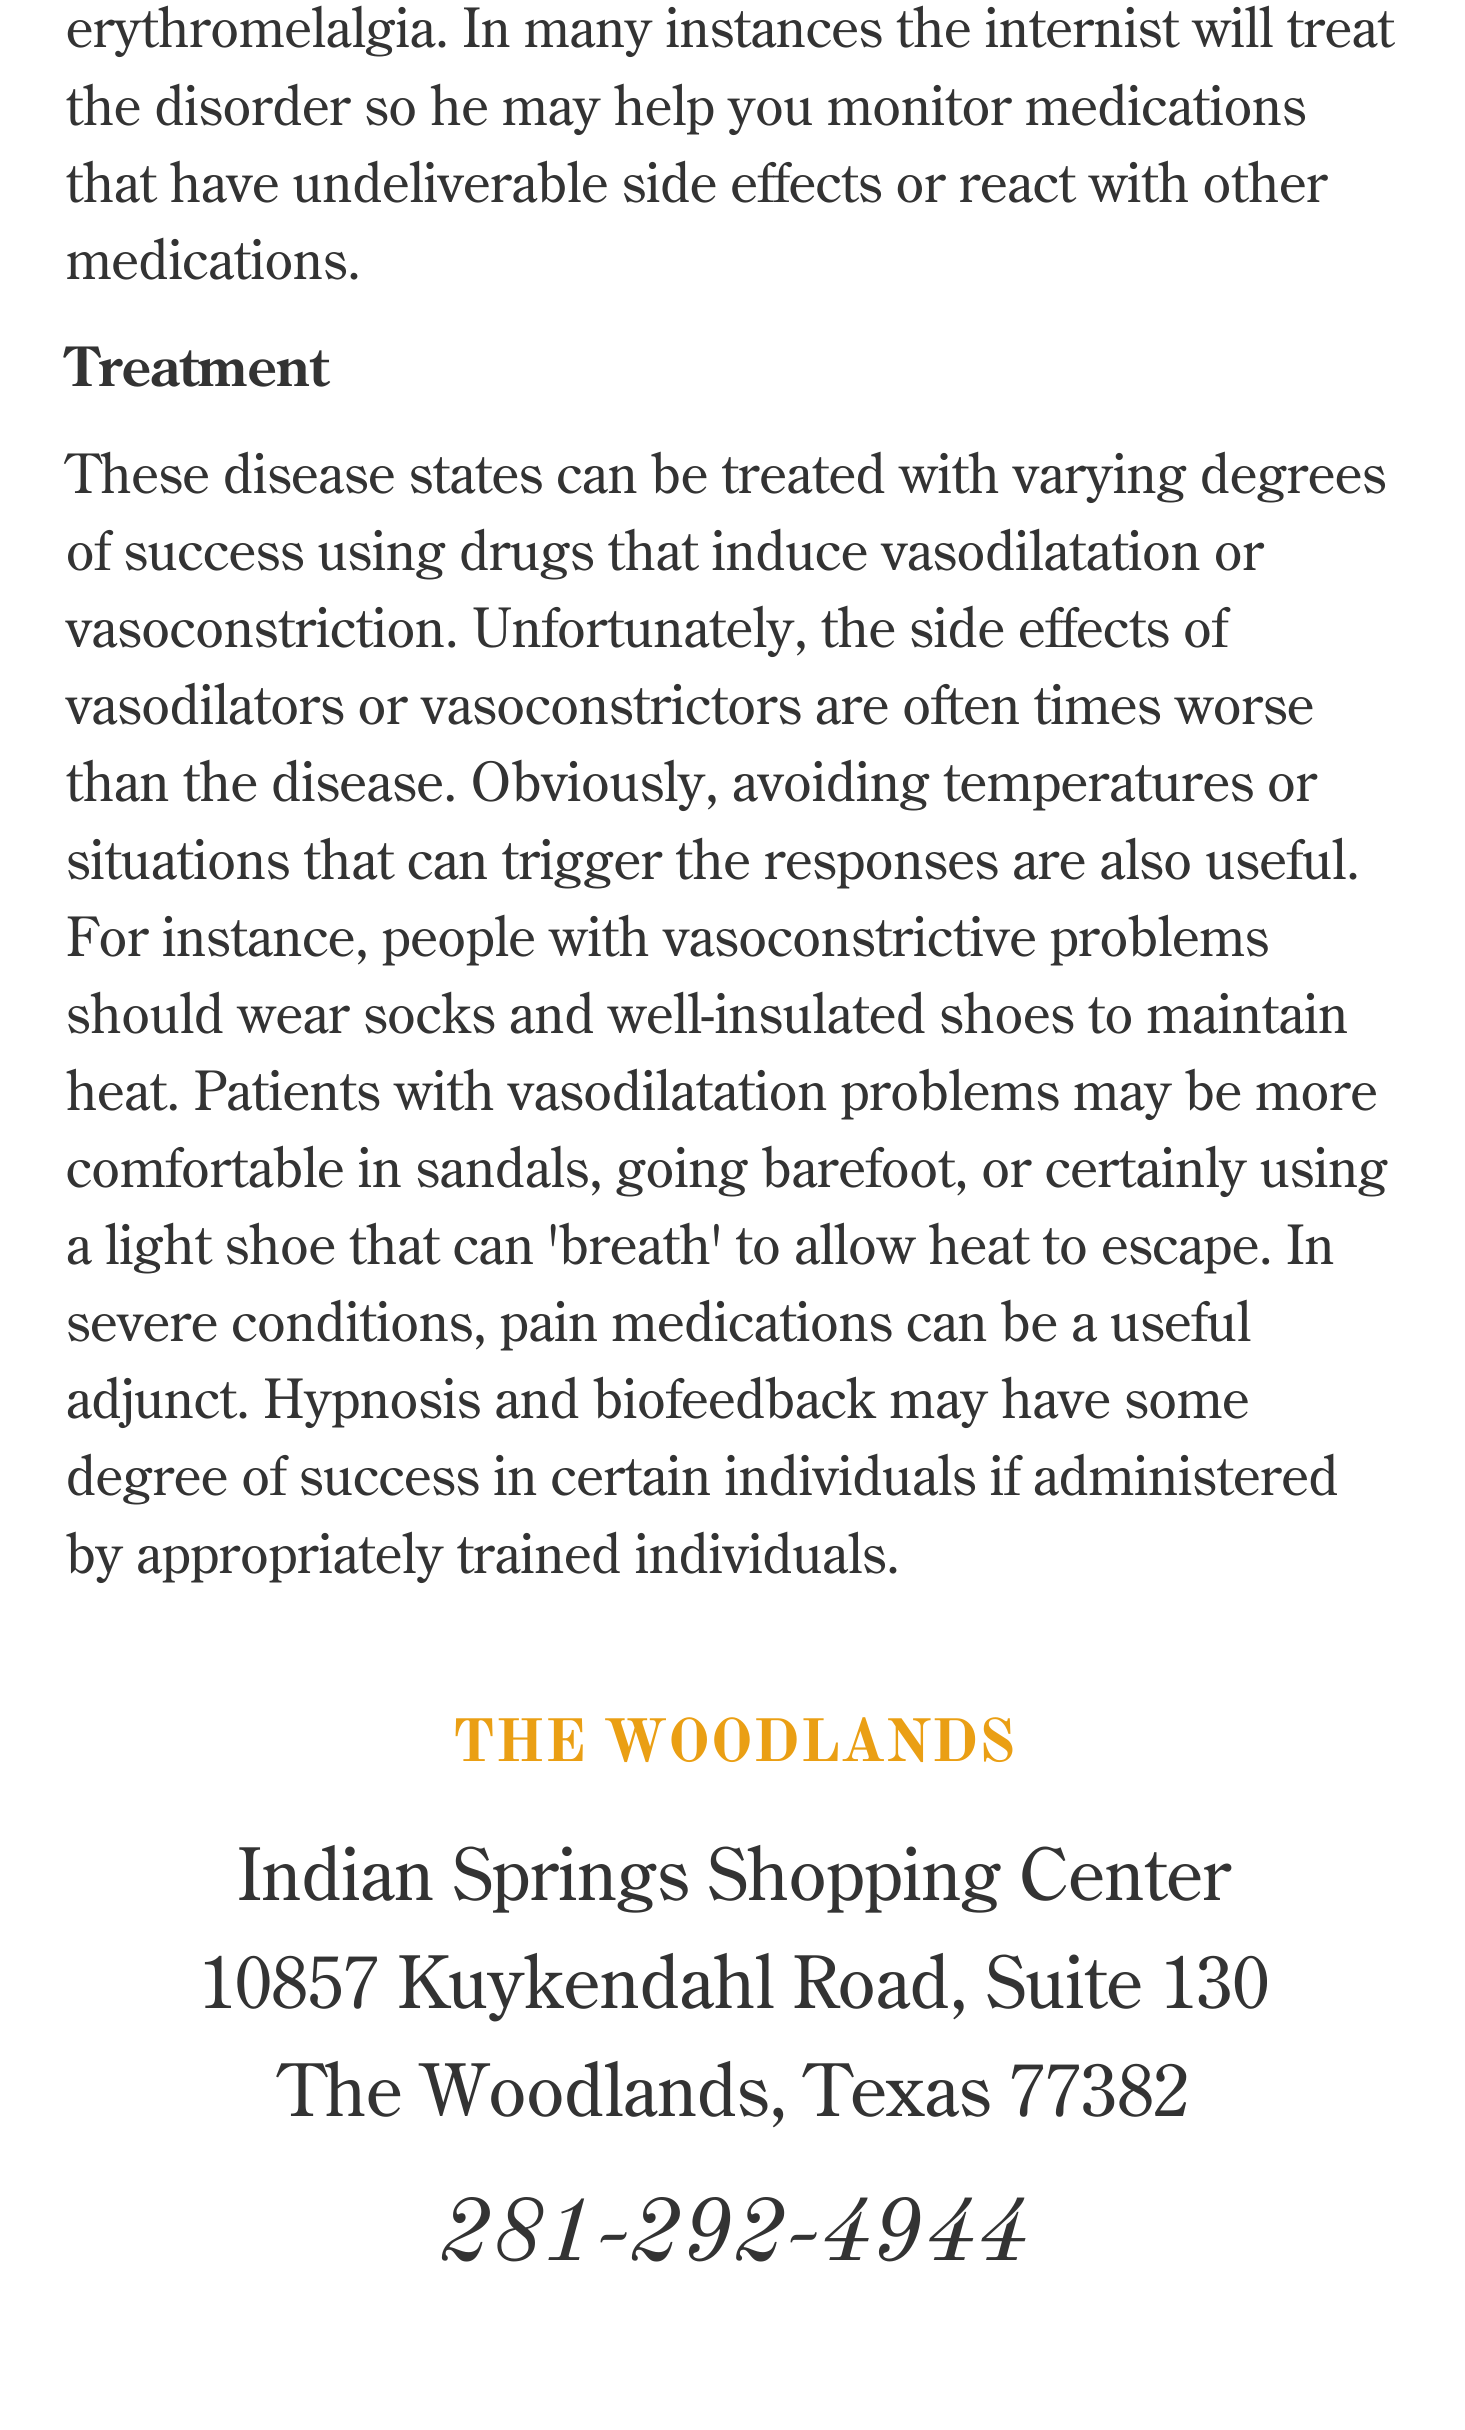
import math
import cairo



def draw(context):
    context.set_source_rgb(1, 1, 1)
    context.paint()
    context.select_font_face("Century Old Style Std")
    context.set_font_size(54)
    context.set_source_rgb(51 / 255, 51 / 255, 51 / 255)
    context.move_to(66, 47)
    context.show_text("erythromelalgia. In many instances the internist will treat")
    context.move_to(66, 125)
    context.show_text("the disorder so he may help you monitor medications")
    context.move_to(66, 202)
    context.show_text("that have undeliverable side effects or react with other")
    context.move_to(66, 279)
    context.show_text("medications.")
    context.select_font_face("Century Old Style Std", cairo.FontSlant.NORMAL, cairo.FontWeight.BOLD)
    context.move_to(66, 386)
    context.show_text("Treatment")
    context.select_font_face("Century Old Style Std")
    context.move_to(66, 493)
    context.show_text("These disease states can be treated with varying degrees")
    context.move_to(66, 570)
    context.show_text("of success using drugs that induce vasodilatation or")
    context.move_to(66, 647)
    context.show_text("vasoconstriction. Unfortunately, the side effects of")
    context.move_to(66, 724)
    context.show_text("vasodilators or vasoconstrictors are often times worse")
    context.move_to(66, 801)
    context.show_text("than the disease. Obviously, avoiding temperatures or")
    context.move_to(66, 879)
    context.show_text("situations that can trigger the responses are also useful.")
    context.move_to(66, 956)
    context.show_text("For instance, people with vasoconstrictive problems")
    context.move_to(66, 1033)
    context.show_text("should wear socks and well-insulated shoes to maintain")
    context.move_to(66, 1110)
    context.show_text("heat. Patients with vasodilatation problems may be more")
    context.move_to(66, 1187)
    context.show_text("comfortable in sandals, going barefoot, or certainly using")
    context.move_to(66, 1264)
    context.show_text("a light shoe that can 'breath' to allow heat to escape. In")
    context.move_to(66, 1341)
    context.show_text("severe conditions, pain medications can be a useful")
    context.move_to(66, 1418)
    context.show_text("adjunct. Hypnosis and biofeedback may have some")
    context.move_to(66, 1495)
    context.show_text("degree of success in certain individuals if administered")
    context.move_to(66, 1573)
    context.show_text("by appropriately trained individuals.")
    context.select_font_face("Old Standard TT", cairo.FontSlant.NORMAL, cairo.FontWeight.BOLD)
    context.set_font_size(60)
    context.set_source_rgb(234 / 255, 159 / 255, 20 / 255)
    context.move_to(452, 1761)
    context.show_text("THE WOODLANDS")
    context.select_font_face("Century Old Style Std")
    context.set_font_size(72)
    context.set_source_rgb(51 / 255, 51 / 255, 51 / 255)
    context.move_to(237, 1900)
    context.show_text("Indian Springs Shopping Center")
    context.move_to(199, 2008)
    context.show_text("10857 Kuykendahl Road, Suite 130")
    context.move_to(279, 2116)
    context.show_text("The Woodlands, Texas 77382")
    context.select_font_face("Old Standard TT", cairo.FontSlant.ITALIC)
    context.set_font_size(90)
    context.move_to(439, 2260)
    context.show_text("281-292-4944")


surface = cairo.ImageSurface(cairo.Format.RGB24, 1465, 2430)
context = cairo.Context(surface)
options = cairo.FontOptions()
options.set_hint_metrics(cairo.HintMetrics.OFF)
options.set_hint_style(cairo.HintStyle.NONE)
context.set_font_options(options)
context.set_miter_limit(4)
draw(context)
surface.write_to_png("out.png")
